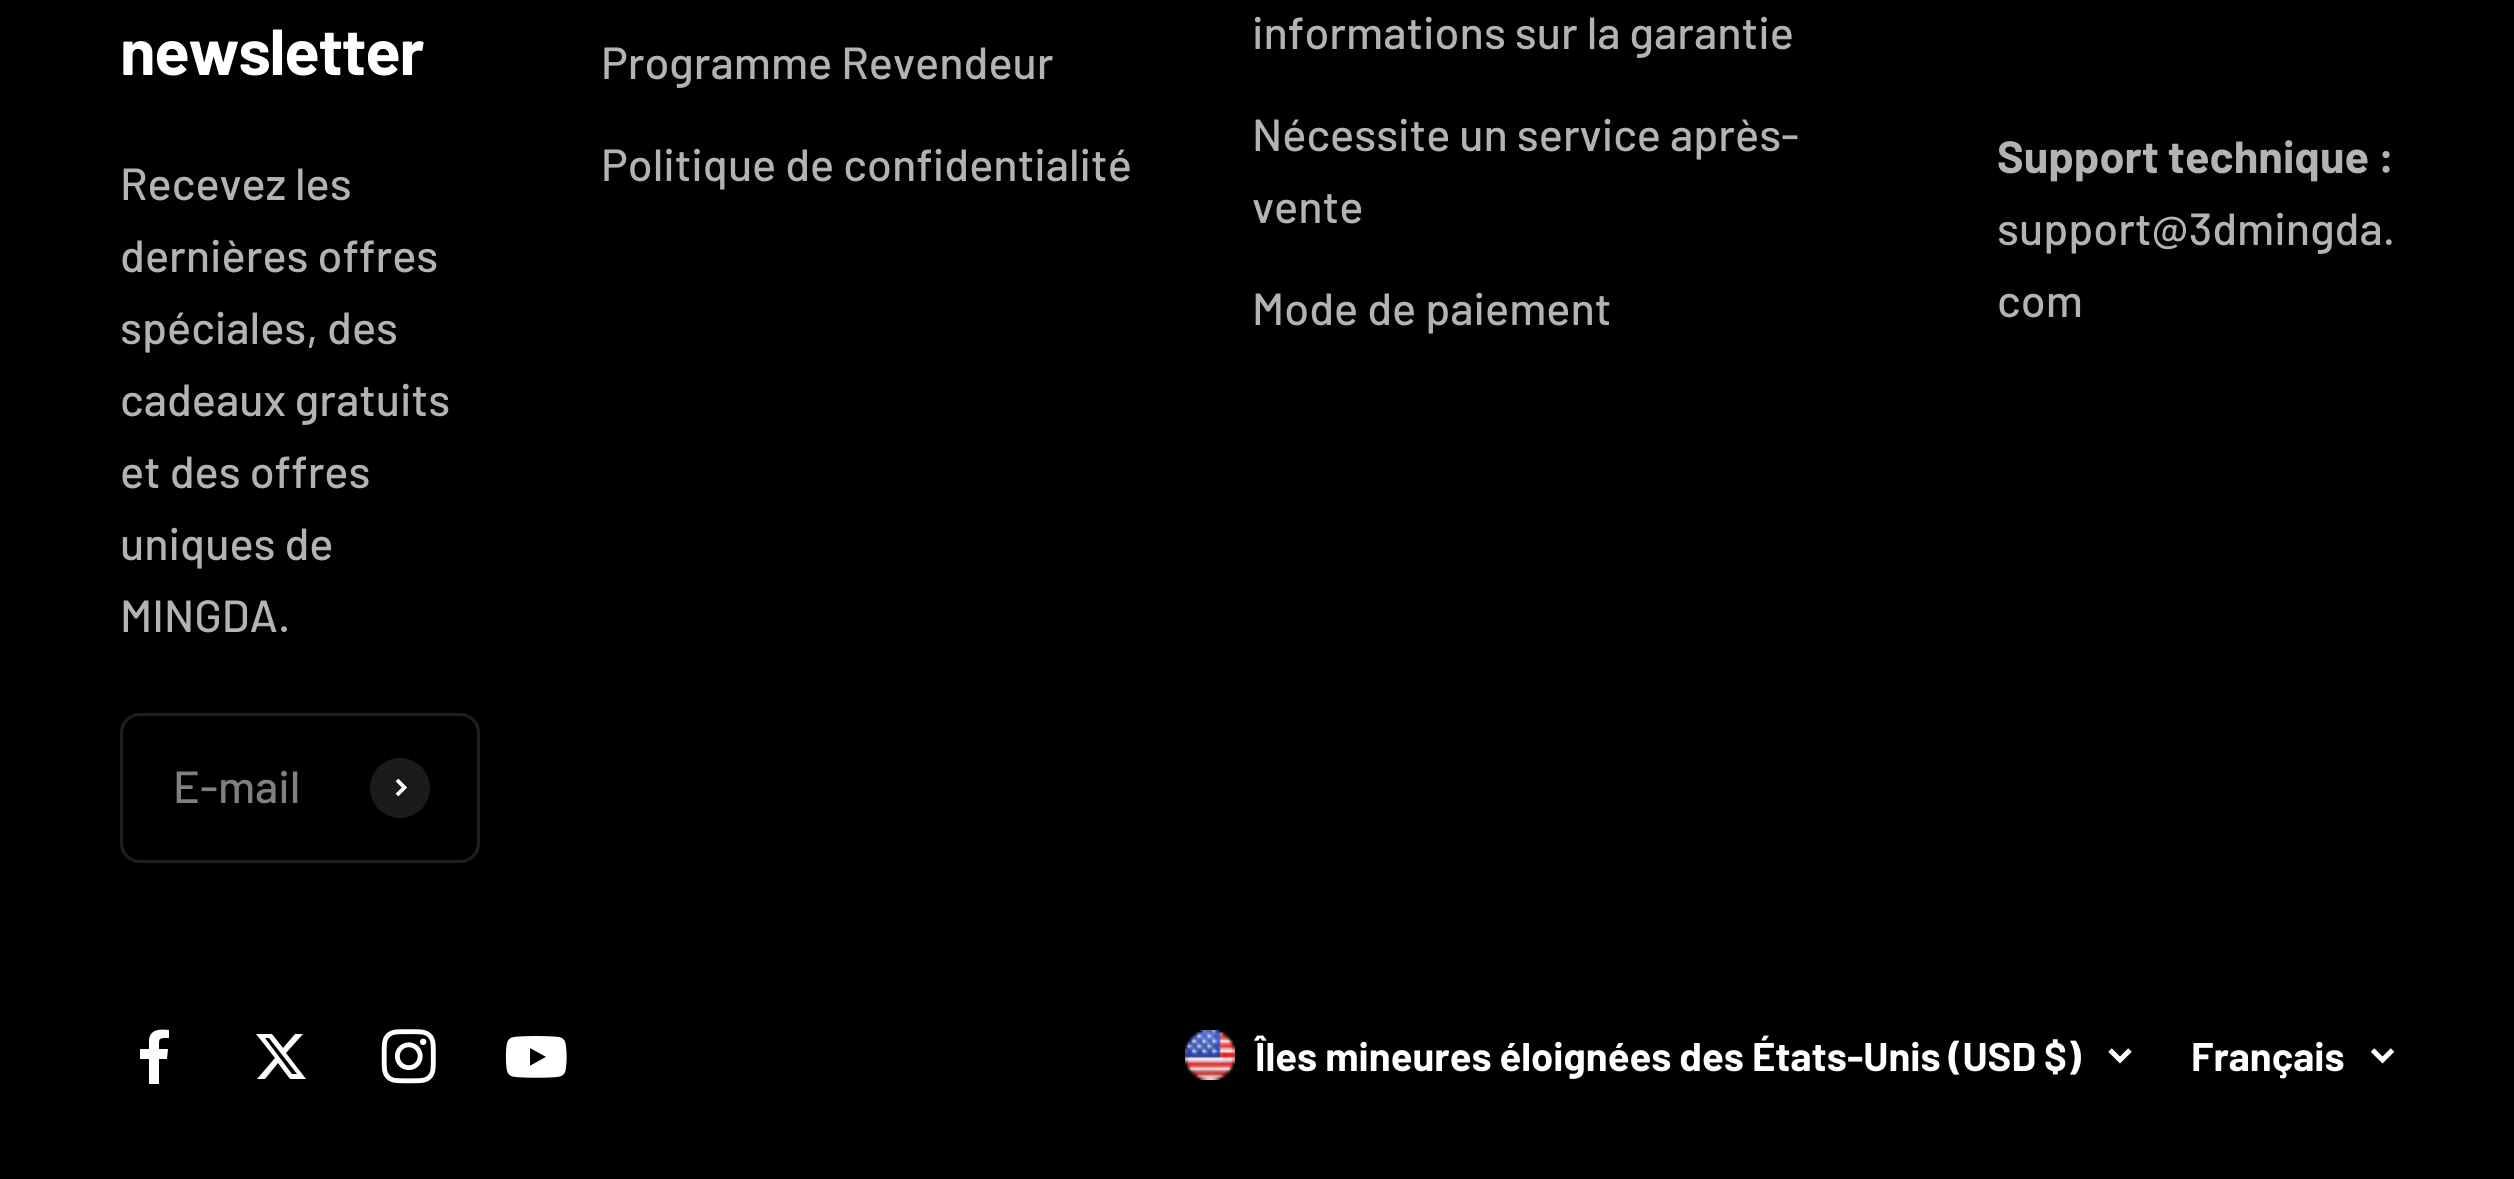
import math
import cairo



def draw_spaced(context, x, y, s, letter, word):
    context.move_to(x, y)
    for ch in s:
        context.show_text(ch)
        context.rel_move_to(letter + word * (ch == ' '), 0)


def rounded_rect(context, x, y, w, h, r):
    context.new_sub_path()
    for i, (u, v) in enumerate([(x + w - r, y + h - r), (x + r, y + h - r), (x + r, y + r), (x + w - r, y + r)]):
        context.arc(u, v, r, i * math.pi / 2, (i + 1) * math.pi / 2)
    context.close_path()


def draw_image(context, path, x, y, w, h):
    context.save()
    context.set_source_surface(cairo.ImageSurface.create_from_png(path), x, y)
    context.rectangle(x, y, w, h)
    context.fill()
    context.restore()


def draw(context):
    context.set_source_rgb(0, 0, 0)
    context.paint()
    rounded_rect(context, 121.5, 714.5, 357, 147, 18.5)
    context.set_source_rgb(31 / 255, 31 / 255, 31 / 255)
    context.set_line_width(3)
    context.stroke()
    context.set_source_rgb(26 / 255, 26 / 255, 26 / 255)
    context.arc(400, 788, 30, 0, 2 * math.pi)
    context.fill()
    context.new_path()
    context.move_to(397, 795)
    context.line_to(404.5, 787.5)
    context.line_to(397, 780)
    context.set_source_rgb(1, 1, 1)
    context.set_line_width(3.8)
    context.stroke()
    context.set_fill_rule(cairo.FillRule.EVEN_ODD)
    context.new_path()
    context.move_to(149, 1084)
    context.line_to(149, 1059)
    context.line_to(140, 1059)
    context.line_to(140, 1049)
    context.line_to(149, 1049)
    context.line_to(149, 1040)
    context.curve_to(150, 1029, 160, 1029, 169, 1030)
    context.line_to(169, 1038)
    context.curve_to(158, 1038, 159, 1038, 159, 1049)
    context.line_to(168, 1049)
    context.line_to(167, 1059)
    context.line_to(159, 1059)
    context.line_to(159, 1084)
    context.close_path()
    context.fill()
    context.set_fill_rule(cairo.FillRule.WINDING)
    context.new_path()
    context.move_to(295, 1034)
    context.line_to(303, 1034)
    context.line_to(286, 1053)
    context.line_to(306, 1079)
    context.line_to(290, 1079)
    context.line_to(278, 1063)
    context.line_to(265, 1079)
    context.line_to(257, 1079)
    context.line_to(275, 1058)
    context.line_to(256, 1034)
    context.line_to(272, 1034)
    context.line_to(283, 1048)
    context.close_path()
    context.move_to(292, 1074)
    context.line_to(297, 1074)
    context.line_to(269, 1038)
    context.line_to(265, 1038)
    context.close_path()
    context.fill()
    draw_image(context, "images/1.png", 381, 1029, 55, 55)
    draw_image(context, "images/2.png", 505, 1036, 62, 42)
    draw_image(context, "images/3.png", 1185, 1030, 50, 50)
    context.new_path()
    context.move_to(2110, 1050)
    context.line_to(2120, 1060)
    context.line_to(2130, 1050)
    context.set_line_width(5)
    context.stroke()
    context.new_path()
    context.move_to(2372.5, 1050)
    context.line_to(2382.5, 1060)
    context.line_to(2392.5, 1050)
    context.stroke()
    context.select_font_face("Barlow", cairo.FontSlant.NORMAL, cairo.FontWeight.BOLD)
    context.set_font_size(65)
    draw_spaced(context, 120, 75, "newsletter", -1.25, 0)
    context.select_font_face("Barlow Medium")
    context.set_font_size(45)
    context.set_source_rgb(179 / 255, 179 / 255, 179 / 255)
    context.move_to(120, 200)
    context.show_text("Recevez les")
    context.move_to(120, 272)
    context.show_text("dernières offres")
    context.move_to(120, 344)
    context.show_text("spéciales, des")
    context.move_to(120, 416)
    context.show_text("cadeaux gratuits")
    context.move_to(120, 488)
    context.show_text("et des offres")
    context.move_to(120, 560)
    context.show_text("uniques de")
    context.move_to(120, 632)
    context.show_text("MINGDA.")
    context.set_source_rgb(128 / 255, 128 / 255, 128 / 255)
    context.move_to(173, 803)
    context.show_text("E-mail")
    context.set_source_rgb(179 / 255, 179 / 255, 179 / 255)
    context.move_to(601, 79)
    context.show_text("Programme Revendeur")
    context.move_to(601, 181)
    context.show_text("Politique de confidentialité")
    context.move_to(1252, 49)
    context.show_text("informations sur la garantie")
    context.move_to(1252, 151)
    context.show_text("Nécessite un service après-")
    context.move_to(1252, 223)
    context.show_text("vente")
    context.move_to(1252, 325)
    context.show_text("Mode de paiement")
    context.select_font_face("Barlow", cairo.FontSlant.NORMAL, cairo.FontWeight.BOLD)
    context.move_to(1997, 173)
    context.show_text("Support technique :")
    context.select_font_face("Barlow Medium")
    context.move_to(1997, 245)
    context.show_text("support@3dmingda.")
    context.move_to(1997, 317)
    context.show_text("com")
    context.select_font_face("Barlow", cairo.FontSlant.NORMAL, cairo.FontWeight.BOLD)
    context.set_font_size(40)
    context.set_source_rgb(1, 1, 1)
    context.move_to(1255, 1071)
    context.show_text("Îles mineures éloignées des États-Unis (USD $)")
    context.move_to(2191, 1071)
    context.show_text("Français")


surface = cairo.ImageSurface(cairo.Format.RGB24, 2514, 1179)
context = cairo.Context(surface)
options = cairo.FontOptions()
options.set_hint_metrics(cairo.HintMetrics.OFF)
options.set_hint_style(cairo.HintStyle.NONE)
context.set_font_options(options)
context.set_miter_limit(4)
draw(context)
surface.write_to_png("out.png")
